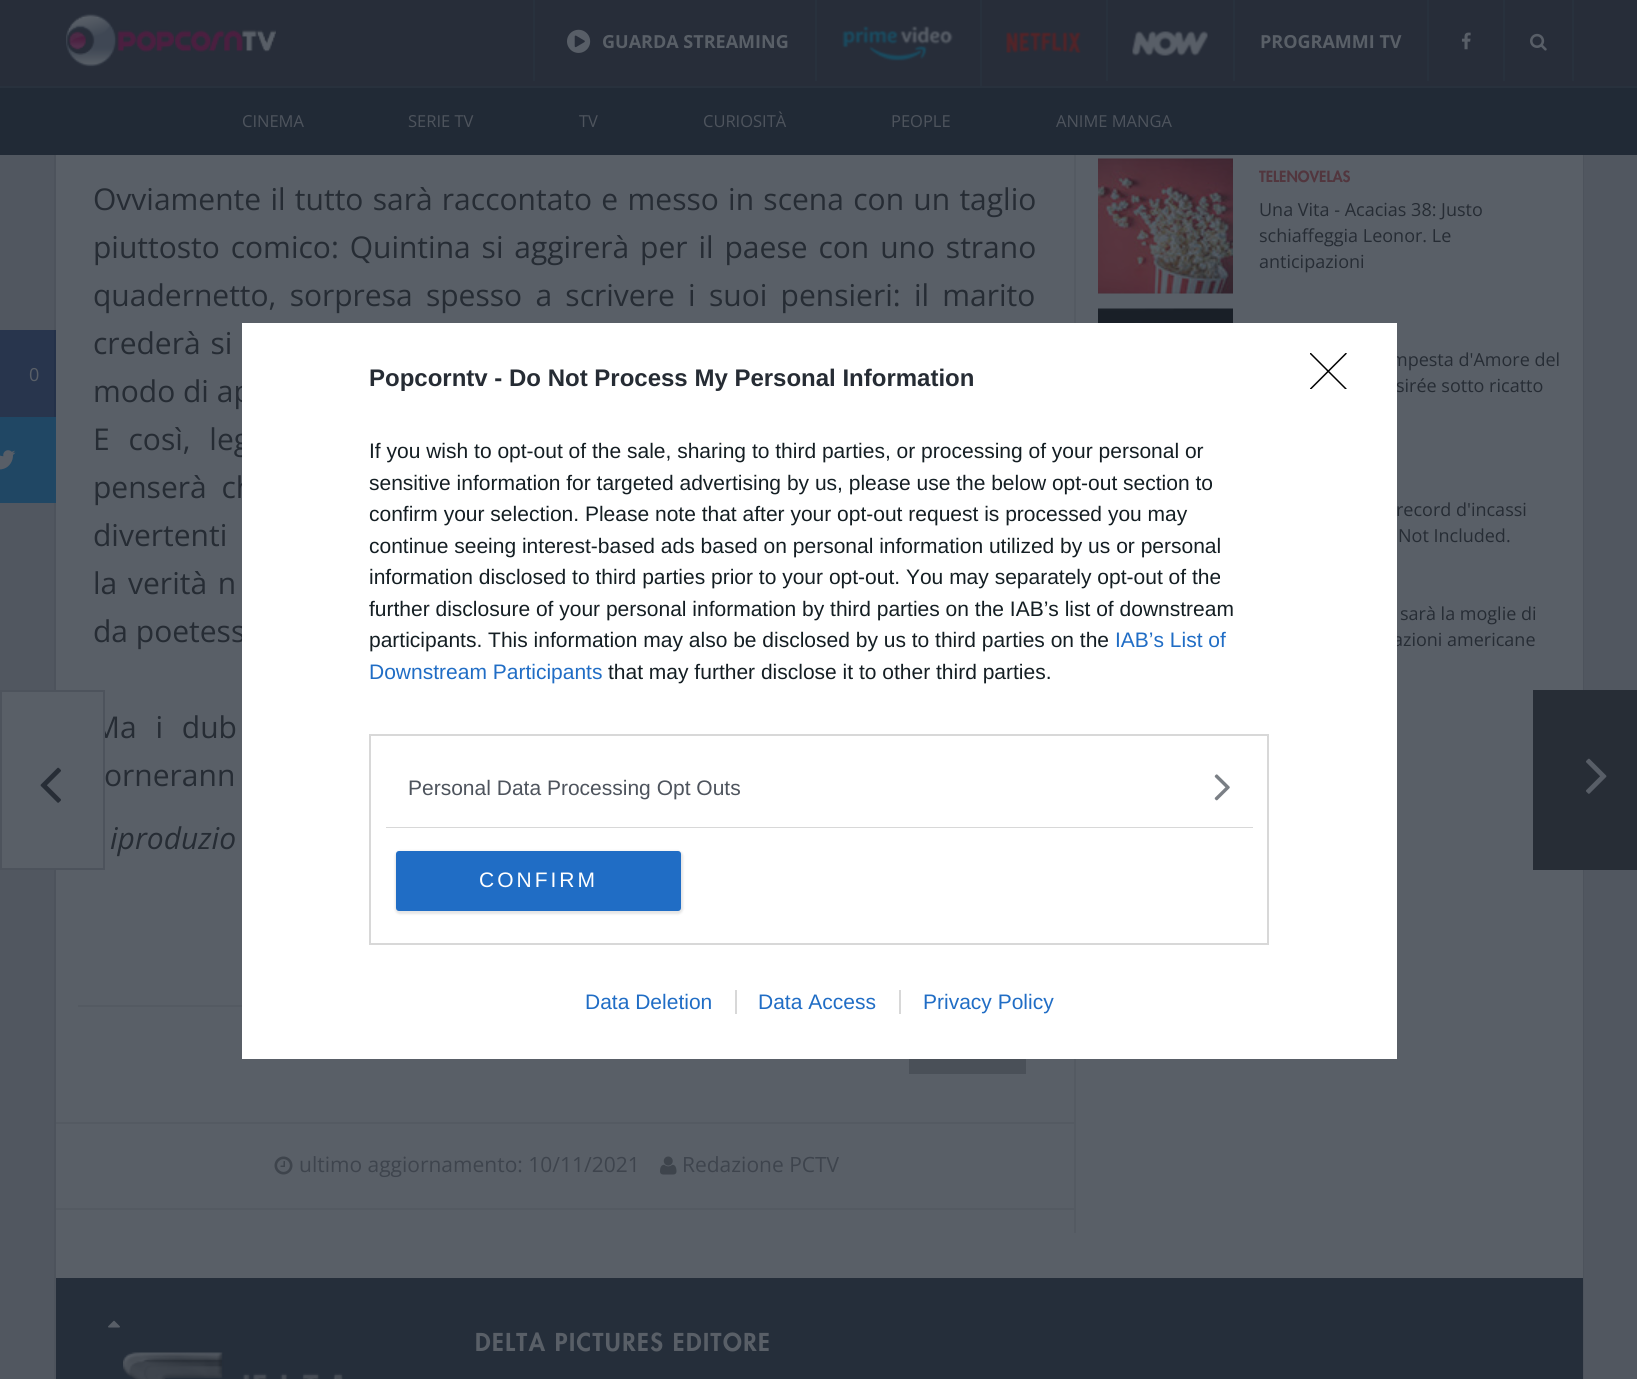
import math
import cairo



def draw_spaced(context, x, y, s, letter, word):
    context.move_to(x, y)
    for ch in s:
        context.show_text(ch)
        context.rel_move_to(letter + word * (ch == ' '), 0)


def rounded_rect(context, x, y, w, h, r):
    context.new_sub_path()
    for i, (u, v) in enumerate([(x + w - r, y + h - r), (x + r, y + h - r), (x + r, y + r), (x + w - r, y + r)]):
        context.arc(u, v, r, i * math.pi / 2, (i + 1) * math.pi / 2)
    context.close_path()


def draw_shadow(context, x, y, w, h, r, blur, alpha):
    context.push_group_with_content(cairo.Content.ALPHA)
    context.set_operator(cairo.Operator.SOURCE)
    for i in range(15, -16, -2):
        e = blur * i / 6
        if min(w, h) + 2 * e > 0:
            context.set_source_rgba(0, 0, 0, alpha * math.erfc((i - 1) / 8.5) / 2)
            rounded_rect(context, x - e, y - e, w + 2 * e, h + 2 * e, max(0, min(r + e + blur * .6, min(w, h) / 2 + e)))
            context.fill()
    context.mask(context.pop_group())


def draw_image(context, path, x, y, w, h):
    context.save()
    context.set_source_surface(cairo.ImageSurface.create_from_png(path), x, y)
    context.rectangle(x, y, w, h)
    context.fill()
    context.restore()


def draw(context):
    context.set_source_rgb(81 / 255, 87 / 255, 96 / 255)
    context.paint()
    context.set_source_rgb(39 / 255, 45 / 255, 57 / 255)
    context.rectangle(0, 0, 1637, 86)
    context.fill()
    draw_image(context, "images/1.png", 66, 13, 210, 55)
    context.set_source_rgb(40 / 255, 49 / 255, 61 / 255)
    context.rectangle(815, 0, 2, 81)
    context.fill()
    context.rectangle(533, 0, 2, 81)
    context.fill()
    draw_image(context, "images/2.png", 567, 29, 24, 24)
    context.rectangle(980, 0, 2, 86)
    context.fill()
    draw_image(context, "images/3.png", 842, 26, 112, 35)
    context.rectangle(1106, 0, 2, 81)
    context.fill()
    draw_image(context, "images/4.png", 1006, 32, 75, 21)
    context.rectangle(1233, 0, 2, 81)
    context.fill()
    draw_image(context, "images/5.png", 1132, 31, 76, 25)
    context.rectangle(1427, 0, 2, 81)
    context.fill()
    context.rectangle(1503, 0, 2, 81)
    context.fill()
    draw_image(context, "images/6.png", 1461, 32, 10, 18)
    context.rectangle(1572, 0, 2, 81)
    context.fill()
    draw_image(context, "images/7.png", 1530, 33, 17, 18)
    context.set_source_rgb(33 / 255, 42 / 255, 54 / 255)
    context.rectangle(0, 88, 1637, 67)
    context.fill()
    context.set_source_rgb(40 / 255, 49 / 255, 61 / 255)
    context.rectangle(0, 86, 1637, 2)
    context.fill()
    context.set_source_rgb(89 / 255, 95 / 255, 103 / 255)
    context.rectangle(56, 155, 1527, 1123)
    context.fill()
    context.set_source_rgb(77 / 255, 83 / 255, 92 / 255)
    context.rectangle(1583, 155, 1, 1224)
    context.fill()
    context.rectangle(54, 155, 2, 1224)
    context.fill()
    context.set_source_rgb(40 / 255, 53 / 255, 77 / 255)
    context.rectangle(0, 330, 54, 87)
    context.fill()
    context.set_source_rgb(36 / 255, 49 / 255, 73 / 255)
    context.rectangle(54, 330, 2, 87)
    context.fill()
    context.set_source_rgb(32 / 255, 71 / 255, 100 / 255)
    context.rectangle(0, 417, 56, 86)
    context.fill()
    draw_image(context, "images/8.png", 0, 450, 16, 20)
    context.set_source_rgb(84 / 255, 90 / 255, 98 / 255)
    context.rectangle(78, 1005, 164, 2)
    context.fill()
    context.set_source_rgb(74 / 255, 80 / 255, 88 / 255)
    context.rectangle(909, 1059, 117, 15)
    context.fill()
    context.set_source_rgb(84 / 255, 90 / 255, 98 / 255)
    context.rectangle(56, 1122, 1018, 2)
    context.fill()
    context.rectangle(56, 1208, 1018, 2)
    context.fill()
    draw_image(context, "images/9.png", 274, 1156, 19, 19)
    draw_image(context, "images/10.png", 660, 1156, 17, 19)
    context.rectangle(1074, 155, 2, 1078)
    context.fill()
    draw_image(context, "images/11.png", 1098, 158, 135, 136)
    draw_image(context, "images/12.png", 1098, 308, 135, 15)
    context.set_source_rgb(39 / 255, 45 / 255, 54 / 255)
    context.rectangle(1533, 690, 104, 180)
    context.fill()
    draw_image(context, "images/14.png", 1586, 758, 21, 36)
    context.set_source_rgb(37 / 255, 46 / 255, 58 / 255)
    context.rectangle(56, 1278, 1527, 101)
    context.fill()
    draw_image(context, "images/15.png", 108, 1320, 12, 8)
    draw_image(context, "images/16.png", 123, 1352, 221, 27)
    context.select_font_face("Open Sans", cairo.FontSlant.NORMAL, cairo.FontWeight.BOLD)
    context.set_font_size(18)
    context.set_source_rgb(89 / 255, 95 / 255, 103 / 255)
    context.move_to(602, 48)
    context.show_text("GUARDA STREAMING")
    context.move_to(1260, 48)
    context.show_text("PROGRAMMI TV")
    context.select_font_face("Open Sans")
    context.set_font_size(16.5)
    context.set_source_rgb(78 / 255, 84 / 255, 93 / 255)
    context.move_to(242, 127)
    context.show_text("CINEMA")
    context.move_to(408, 127)
    context.show_text("SERIE TV")
    context.move_to(579, 127)
    context.show_text("TV")
    context.move_to(703, 127)
    context.show_text("CURIOSITÀ")
    context.move_to(891, 127)
    context.show_text("PEOPLE")
    context.move_to(1056, 127)
    context.show_text("ANIME MANGA")
    context.set_font_size(18)
    context.set_source_rgb(89 / 255, 95 / 255, 103 / 255)
    context.move_to(29, 381)
    context.show_text("0")
    context.set_font_size(30)
    context.set_source_rgb(38 / 255, 44 / 255, 52 / 255)
    draw_spaced(context, 93, 210, "Ovviamente il tutto sarà raccontato e messo in scena con un taglio", 0, 1.5)
    draw_spaced(context, 93, 258, "piuttosto comico: Quintina si aggirerà per il paese con uno strano", 0, 3.1)
    draw_spaced(context, 93, 306, "quadernetto, sorpresa spesso a scrivere i suoi pensieri: il marito", 0, 5.5)
    draw_spaced(context, 93, 354, "crederà si", 0, 2)
    context.move_to(93, 402)
    context.show_text("modo di ap")
    draw_spaced(context, 93, 450, "E così, leg", 0, 11)
    draw_spaced(context, 93, 498, "penserà ch", 0, 7)
    draw_spaced(context, 93, 546, "divertenti", 0, 1)
    draw_spaced(context, 93, 594, "la verità n", 0, 3)
    context.move_to(93, 642)
    context.show_text("da poetess")
    draw_spaced(context, 93, 738, "Ma i dub", 0, 11)
    context.move_to(104, 786)
    context.show_text("ornerann")
    context.select_font_face("Open Sans", cairo.FontSlant.ITALIC)
    context.move_to(110, 849)
    context.show_text("iproduzio")
    context.select_font_face("Open Sans")
    context.set_font_size(21)
    context.set_source_rgb(62 / 255, 68 / 255, 77 / 255)
    context.move_to(299, 1172)
    context.show_text("ultimo aggiornamento: 10/11/2021")
    context.move_to(682, 1172)
    context.show_text("Redazione PCTV")
    context.select_font_face("Futura Black")
    context.set_font_size(15)
    context.set_source_rgb(82 / 255, 54 / 255, 62 / 255)
    context.move_to(1259, 182)
    context.show_text("TELENOVELAS")
    context.select_font_face("Open Sans")
    context.set_font_size(18)
    context.set_source_rgb(38 / 255, 44 / 255, 52 / 255)
    context.move_to(1259, 216)
    context.show_text("Una Vita - Acacias 38: Justo")
    context.move_to(1259, 242)
    context.show_text("schiaffeggia Leonor. Le")
    context.move_to(1259, 268)
    context.show_text("anticipazioni")
    context.move_to(1391, 366)
    context.show_text("mpesta d'Amore del")
    context.move_to(1396, 392)
    context.show_text("sirée sotto ricatto")
    context.move_to(1396, 516)
    context.show_text("record d'incassi")
    context.move_to(1398, 542)
    context.show_text("Not Included.")
    context.move_to(1400, 620)
    context.show_text("sarà la moglie di")
    context.move_to(1393, 646)
    context.show_text("azioni americane")
    context.set_source_rgb(89 / 255, 95 / 255, 103 / 255)
    context.rectangle(1, 691, 103, 178)
    context.fill_preserve()
    context.set_source_rgb(77 / 255, 83 / 255, 92 / 255)
    context.stroke()
    draw_image(context, "images/13.png", 40, 767, 21, 36)
    context.select_font_face("Futura Black")
    context.set_font_size(24)
    context.set_source_rgb(89 / 255, 95 / 255, 103 / 255)
    draw_spaced(context, 475, 1351, "DELTA PICTURES EDITORE", 1.5, 0)
    context.set_source_rgb(1, 1, 1)
    context.rectangle(242, 323, 1155, 736)
    context.fill()
    context.select_font_face("Liberation Sans", cairo.FontSlant.NORMAL, cairo.FontWeight.BOLD)
    context.set_source_rgb(38 / 255, 44 / 255, 52 / 255)
    context.move_to(369, 386)
    context.show_text("Popcorntv - Do Not Process My Personal Information")
    context.select_font_face("Liberation Sans")
    context.set_font_size(21)
    context.set_source_rgb(20 / 255, 30 / 255, 35 / 255)
    context.move_to(369, 458)
    context.show_text("If you wish to opt-out of the sale, sharing to third parties, or processing of your personal or")
    context.move_to(369, 490)
    context.show_text("sensitive information for targeted advertising by us, please use the below opt-out section to")
    context.move_to(369, 521)
    context.show_text("confirm your selection. Please note that after your opt-out request is processed you may")
    context.move_to(369, 553)
    context.show_text("continue seeing interest-based ads based on personal information utilized by us or personal")
    context.move_to(369, 584)
    context.show_text("information disclosed to third parties prior to your opt-out. You may separately opt-out of the")
    context.move_to(369, 616)
    context.show_text("further disclosure of your personal information by third parties on the IAB’s list of downstream")
    context.move_to(369, 647)
    context.show_text("participants. This information may also be disclosed by us to third parties on the")
    context.set_source_rgb(32 / 255, 109 / 255, 197 / 255)
    context.move_to(1115, 647)
    context.show_text("IAB’s List of")
    context.move_to(369, 679)
    context.show_text("Downstream Participants")
    context.set_source_rgb(20 / 255, 30 / 255, 35 / 255)
    context.move_to(608, 679)
    context.show_text("that may further disclose it to other third parties.")
    context.rectangle(370, 735, 898, 209)
    context.set_source_rgb(216 / 255, 216 / 255, 216 / 255)
    context.stroke()
    context.rectangle(386, 827, 867, 1)
    context.fill()
    context.set_source_rgb(78 / 255, 84 / 255, 93 / 255)
    context.move_to(408, 795)
    context.show_text("Personal Data Processing Opt Outs")
    draw_image(context, "images/17.png", 1214, 774, 16, 27)
    context.set_source_rgb(0, 0, 0)
    draw_shadow(context, 395, 851, 288, 63, 5, 1, 0.1)
    context.set_source_rgb(32 / 255, 109 / 255, 197 / 255)
    rounded_rect(context, 396, 851, 285, 60, 3)
    context.fill()
    context.set_source_rgb(1, 1, 1)
    draw_spaced(context, 479, 887, "CONFIRM", 3, 0)
    context.save()
    context.rectangle(1310, 353, 37, 36)
    context.clip()
    context.new_path()
    context.move_to(1310.5, 353.5)
    context.line_to(1346, 389)
    context.move_to(1346, 353.5)
    context.line_to(1310.5, 389)
    context.set_source_rgb(0, 0, 0)
    context.set_line_width(1.5)
    context.set_line_cap(cairo.LineCap.ROUND)
    context.set_line_join(cairo.LineJoin.ROUND)
    context.stroke()
    context.restore()
    context.set_source_rgb(32 / 255, 109 / 255, 197 / 255)
    context.move_to(585, 1009)
    context.show_text("Data Deletion")
    context.move_to(758, 1009)
    context.show_text("Data Access")
    context.set_source_rgb(216 / 255, 216 / 255, 216 / 255)
    context.rectangle(735, 990, 2, 24)
    context.fill()
    context.set_source_rgb(32 / 255, 109 / 255, 197 / 255)
    context.move_to(923, 1009)
    context.show_text("Privacy Policy")
    context.set_source_rgb(216 / 255, 216 / 255, 216 / 255)
    context.rectangle(899, 990, 2, 24)
    context.fill()


surface = cairo.ImageSurface(cairo.Format.RGB24, 1637, 1379)
context = cairo.Context(surface)
options = cairo.FontOptions()
options.set_hint_metrics(cairo.HintMetrics.OFF)
options.set_hint_style(cairo.HintStyle.NONE)
context.set_font_options(options)
context.set_miter_limit(4)
draw(context)
surface.write_to_png("out.png")
